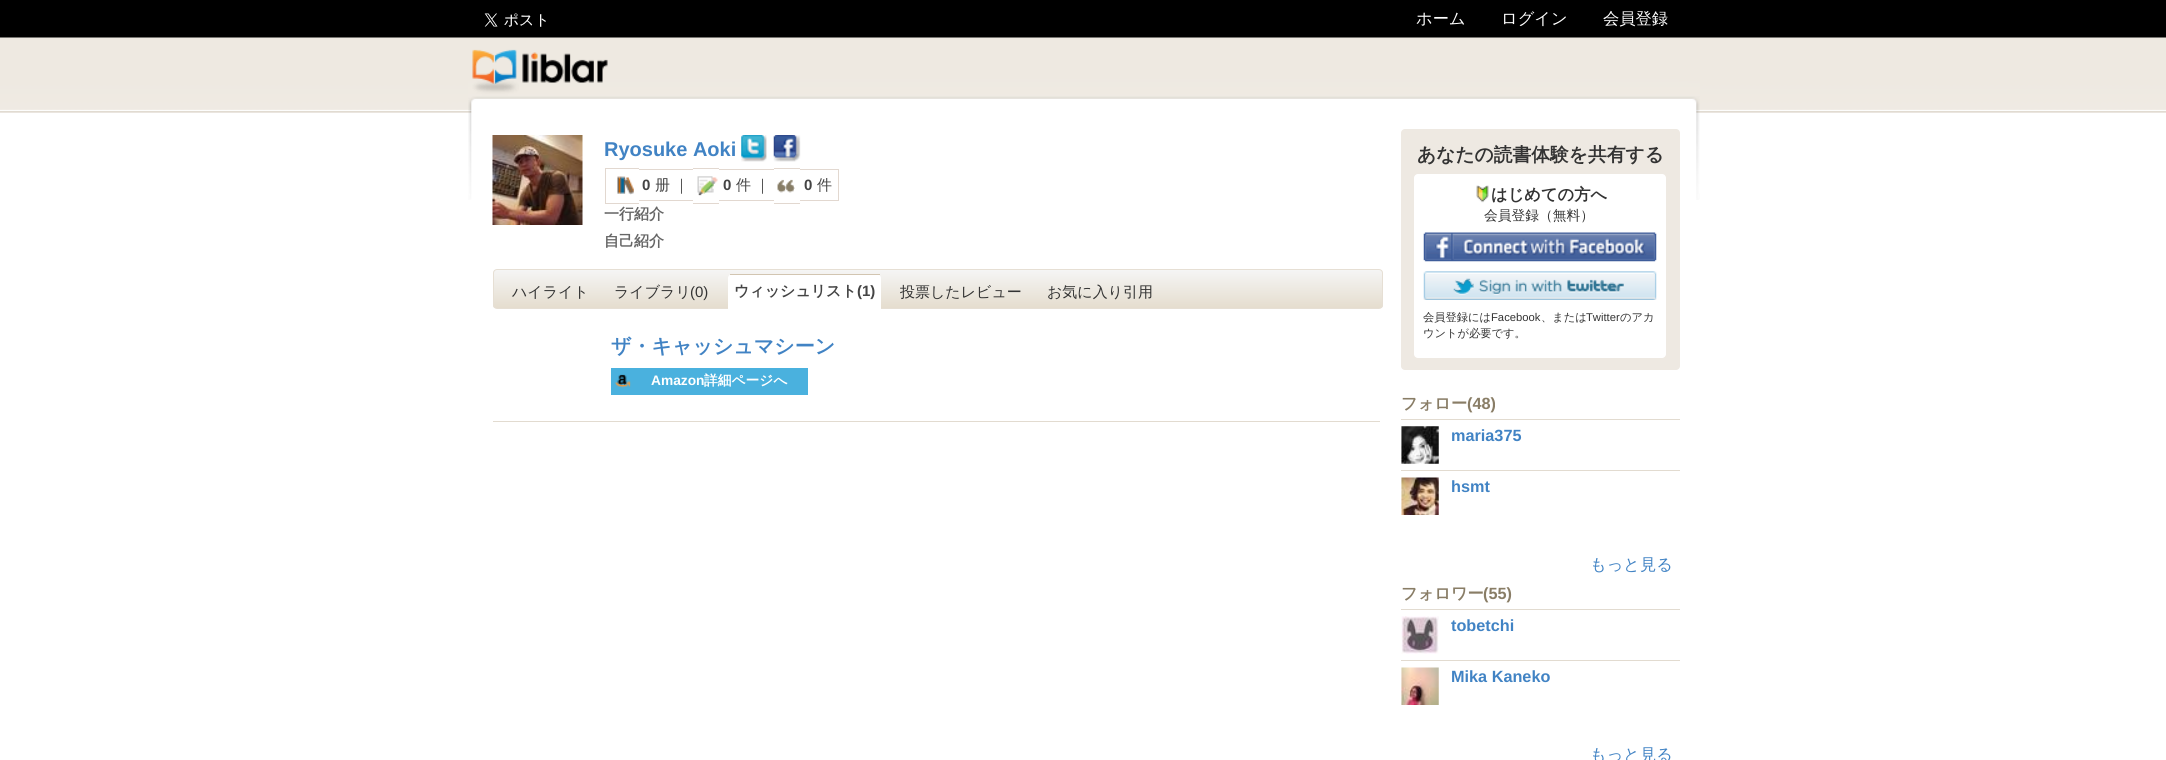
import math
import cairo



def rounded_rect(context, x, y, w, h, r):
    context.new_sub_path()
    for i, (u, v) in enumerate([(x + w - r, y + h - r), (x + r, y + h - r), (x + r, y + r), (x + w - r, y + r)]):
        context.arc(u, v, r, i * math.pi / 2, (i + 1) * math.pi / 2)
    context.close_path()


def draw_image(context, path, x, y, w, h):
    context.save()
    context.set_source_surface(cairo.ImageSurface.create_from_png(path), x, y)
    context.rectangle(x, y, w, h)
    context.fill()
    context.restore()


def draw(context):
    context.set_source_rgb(1, 1, 1)
    context.paint()
    draw_image(context, "images/1.png", 0, 0, 2166, 113)
    draw_image(context, "images/2.png", 468, 49, 1232, 151)
    draw_image(context, "images/3.png", 484, 13, 62, 14)
    draw_image(context, "images/4.png", 492, 135, 91, 90)
    draw_image(context, "images/5.png", 741, 135, 26, 27)
    draw_image(context, "images/6.png", 773, 135, 28, 27)
    draw_image(context, "images/7.png", 617, 176, 17, 19)
    context.set_source_rgb(226 / 255, 216 / 255, 208 / 255)
    context.rectangle(605, 168, 34, 1)
    context.fill()
    context.rectangle(605, 203, 34, 1)
    context.fill()
    context.rectangle(605, 168, 1, 36)
    context.fill()
    context.rectangle(639, 169, 54, 1)
    context.fill()
    context.rectangle(639, 200, 54, 1)
    context.fill()
    draw_image(context, "images/8.png", 697, 176, 21, 20)
    context.rectangle(693, 168, 26, 1)
    context.fill()
    context.rectangle(693, 203, 26, 1)
    context.fill()
    context.rectangle(719, 169, 55, 1)
    context.fill()
    context.rectangle(719, 200, 55, 1)
    context.fill()
    draw_image(context, "images/9.png", 777, 179, 18, 14)
    context.rectangle(774, 168, 26, 1)
    context.fill()
    context.rectangle(774, 203, 26, 1)
    context.fill()
    context.rectangle(800, 169, 39, 1)
    context.fill()
    context.rectangle(800, 200, 13, 1)
    context.fill()
    context.rectangle(838, 169, 1, 32)
    context.fill()
    context.rectangle(813, 200, 26, 1)
    context.fill()
    context.save()
    rounded_rect(context, 493, 269, 890, 40, 4)
    context.clip()
    gradient = cairo.LinearGradient(494, 270, 494, 308)
    gradient.add_color_stop_rgba(0, 245 / 255, 245 / 255, 244 / 255, 1)
    gradient.add_color_stop_rgba(1, 229 / 255, 221 / 255, 207 / 255, 1)
    context.set_source(gradient)
    context.rectangle(493, 270, 890, 38)
    context.fill()
    context.restore()
    rounded_rect(context, 493.5, 269.5, 889, 39, 3.5)
    context.set_source_rgb(230 / 255, 223 / 255, 212 / 255)
    context.set_line_width(1)
    context.stroke()
    context.set_source_rgb(1, 1, 1)
    context.new_path()
    context.move_to(732, 274)
    context.line_to(877, 274)
    context.curve_to(879, 274, 881, 276, 881, 278)
    context.line_to(881, 310)
    context.line_to(728, 310)
    context.line_to(728, 278)
    context.curve_to(728, 276, 730, 274, 732, 274)
    context.close_path()
    context.fill()
    context.set_source_rgb(210 / 255, 197 / 255, 177 / 255)
    context.rectangle(730, 274, 150, 1)
    context.fill()
    context.set_source_rgb(226 / 255, 219 / 255, 208 / 255)
    context.rectangle(493, 421, 887, 1)
    context.fill()
    context.set_source_rgb(74 / 255, 177 / 255, 222 / 255)
    context.rectangle(611, 368, 197, 27)
    context.fill()
    draw_image(context, "images/10.png", 615, 374, 16, 14)
    context.set_source_rgb(238 / 255, 233 / 255, 226 / 255)
    rounded_rect(context, 1401, 129, 279, 241, 4)
    context.fill()
    context.set_source_rgb(1, 1, 1)
    rounded_rect(context, 1414, 174, 252, 184, 4)
    context.fill()
    draw_image(context, "images/11.png", 1476, 185, 13, 18)
    draw_image(context, "images/12.png", 1423, 232, 234, 30)
    draw_image(context, "images/13.png", 1423, 271, 234, 29)
    context.set_source_rgb(226 / 255, 219 / 255, 208 / 255)
    context.rectangle(1401, 419, 279, 1)
    context.fill()
    draw_image(context, "images/14.png", 1401, 426, 38, 38)
    context.rectangle(1401, 470, 279, 1)
    context.fill()
    draw_image(context, "images/15.png", 1401, 477, 38, 38)
    context.rectangle(1401, 609, 279, 1)
    context.fill()
    draw_image(context, "images/16.png", 1401, 616, 38, 38)
    context.rectangle(1401, 660, 279, 1)
    context.fill()
    draw_image(context, "images/17.png", 1401, 667, 38, 38)
    context.select_font_face("WenQuanYi Zen Hei Medium")
    context.set_font_size(16.25)
    context.set_source_rgb(1, 1, 1)
    context.move_to(1416, 24)
    context.show_text("ホーム")
    context.move_to(1501, 24)
    context.show_text("ログイン")
    context.move_to(1603, 24)
    context.show_text("会員登録")
    context.select_font_face("Liberation Sans", cairo.FontSlant.NORMAL, cairo.FontWeight.BOLD)
    context.set_font_size(20)
    context.set_source_rgb(65 / 255, 131 / 255, 196 / 255)
    context.move_to(604, 156)
    context.show_text("Ryosuke Aoki")
    context.set_font_size(15)
    context.set_source_rgb(68 / 255, 68 / 255, 68 / 255)
    context.move_to(642, 190)
    context.show_text("0")
    context.select_font_face("WenQuanYi Zen Hei Medium")
    context.move_to(655, 190)
    context.show_text("册")
    context.move_to(674, 190)
    context.show_text("｜")
    context.select_font_face("Liberation Sans", cairo.FontSlant.NORMAL, cairo.FontWeight.BOLD)
    context.move_to(723, 190)
    context.show_text("0")
    context.select_font_face("WenQuanYi Zen Hei Medium")
    context.move_to(736, 190)
    context.show_text("件")
    context.move_to(755, 190)
    context.show_text("｜")
    context.select_font_face("Liberation Sans", cairo.FontSlant.NORMAL, cairo.FontWeight.BOLD)
    context.move_to(804, 190)
    context.show_text("0")
    context.select_font_face("WenQuanYi Zen Hei Medium")
    context.move_to(817, 190)
    context.show_text("件")
    context.select_font_face("WenQuanYi Zen Hei", cairo.FontSlant.NORMAL, cairo.FontWeight.BOLD)
    context.set_source_rgb(102 / 255, 102 / 255, 102 / 255)
    context.move_to(604, 219)
    context.show_text("一行紹介")
    context.move_to(604, 246)
    context.show_text("自己紹介")
    context.select_font_face("WenQuanYi Zen Hei Medium")
    context.set_source_rgb(51 / 255, 51 / 255, 51 / 255)
    context.move_to(512, 297)
    context.show_text("ハイライト")
    context.move_to(614, 297)
    context.show_text("ライブラリ")
    context.select_font_face("Liberation Sans")
    context.move_to(690, 297)
    context.show_text("(0)")
    context.select_font_face("WenQuanYi Zen Hei", cairo.FontSlant.NORMAL, cairo.FontWeight.BOLD)
    context.set_source_rgb(68 / 255, 68 / 255, 68 / 255)
    context.move_to(734, 296)
    context.show_text("ウィッシュリスト")
    context.select_font_face("Liberation Sans", cairo.FontSlant.NORMAL, cairo.FontWeight.BOLD)
    context.move_to(857, 296)
    context.show_text("(1)")
    context.select_font_face("WenQuanYi Zen Hei Medium")
    context.set_source_rgb(51 / 255, 51 / 255, 51 / 255)
    context.move_to(900, 297)
    context.show_text("投票したレビュー")
    context.move_to(1047, 297)
    context.show_text("お気に入り引用")
    context.select_font_face("WenQuanYi Zen Hei", cairo.FontSlant.NORMAL, cairo.FontWeight.BOLD)
    context.set_font_size(20)
    context.set_source_rgb(65 / 255, 131 / 255, 196 / 255)
    context.move_to(611, 353)
    context.show_text("ザ・キャッシュマシーン")
    context.select_font_face("Liberation Sans", cairo.FontSlant.NORMAL, cairo.FontWeight.BOLD)
    context.set_font_size(13.75)
    context.set_source_rgb(1, 1, 1)
    context.move_to(651, 385)
    context.show_text("Amazon")
    context.select_font_face("WenQuanYi Zen Hei", cairo.FontSlant.NORMAL, cairo.FontWeight.BOLD)
    context.move_to(704, 385)
    context.show_text("詳細ページへ")
    context.set_font_size(18.75)
    context.set_source_rgb(51 / 255, 51 / 255, 51 / 255)
    context.move_to(1417, 161)
    context.show_text("あなたの読書体験を共有する")
    context.set_font_size(16.25)
    context.move_to(1491, 200)
    context.show_text("はじめての方へ")
    context.select_font_face("WenQuanYi Zen Hei Medium")
    context.set_font_size(13.75)
    context.move_to(1484, 220)
    context.show_text("会員登録（無料）")
    context.set_font_size(11.25)
    context.move_to(1423, 321)
    context.show_text("会員登録には")
    context.select_font_face("Liberation Sans")
    context.move_to(1491, 321)
    context.show_text("Facebook")
    context.select_font_face("WenQuanYi Zen Hei Medium")
    context.move_to(1541, 321)
    context.show_text("、または")
    context.select_font_face("Liberation Sans")
    context.move_to(1586, 321)
    context.show_text("Twitter")
    context.select_font_face("WenQuanYi Zen Hei Medium")
    context.move_to(1620, 321)
    context.show_text("のアカ")
    context.move_to(1423, 337)
    context.show_text("ウントが必要です。")
    context.select_font_face("WenQuanYi Zen Hei", cairo.FontSlant.NORMAL, cairo.FontWeight.BOLD)
    context.set_font_size(16.25)
    context.set_source_rgb(137 / 255, 125 / 255, 102 / 255)
    context.move_to(1401, 409)
    context.show_text("フォロー")
    context.select_font_face("Liberation Sans", cairo.FontSlant.NORMAL, cairo.FontWeight.BOLD)
    context.move_to(1467, 409)
    context.show_text("(48)")
    context.set_source_rgb(65 / 255, 131 / 255, 196 / 255)
    context.move_to(1451, 441)
    context.show_text("maria375")
    context.move_to(1451, 492)
    context.show_text("hsmt")
    context.select_font_face("WenQuanYi Zen Hei Medium")
    context.move_to(1590, 570)
    context.show_text("もっと見る")
    context.select_font_face("WenQuanYi Zen Hei", cairo.FontSlant.NORMAL, cairo.FontWeight.BOLD)
    context.set_source_rgb(137 / 255, 125 / 255, 102 / 255)
    context.move_to(1401, 599)
    context.show_text("フォロワー")
    context.select_font_face("Liberation Sans", cairo.FontSlant.NORMAL, cairo.FontWeight.BOLD)
    context.move_to(1483, 599)
    context.show_text("(55)")
    context.set_source_rgb(65 / 255, 131 / 255, 196 / 255)
    context.move_to(1451, 631)
    context.show_text("tobetchi")
    context.move_to(1451, 682)
    context.show_text("Mika Kaneko")
    context.select_font_face("WenQuanYi Zen Hei Medium")
    context.move_to(1590, 760)
    context.show_text("もっと見る")


surface = cairo.ImageSurface(cairo.Format.RGB24, 2166, 760)
context = cairo.Context(surface)
options = cairo.FontOptions()
options.set_hint_metrics(cairo.HintMetrics.OFF)
options.set_hint_style(cairo.HintStyle.NONE)
context.set_font_options(options)
context.set_miter_limit(4)
draw(context)
surface.write_to_png("out.png")
